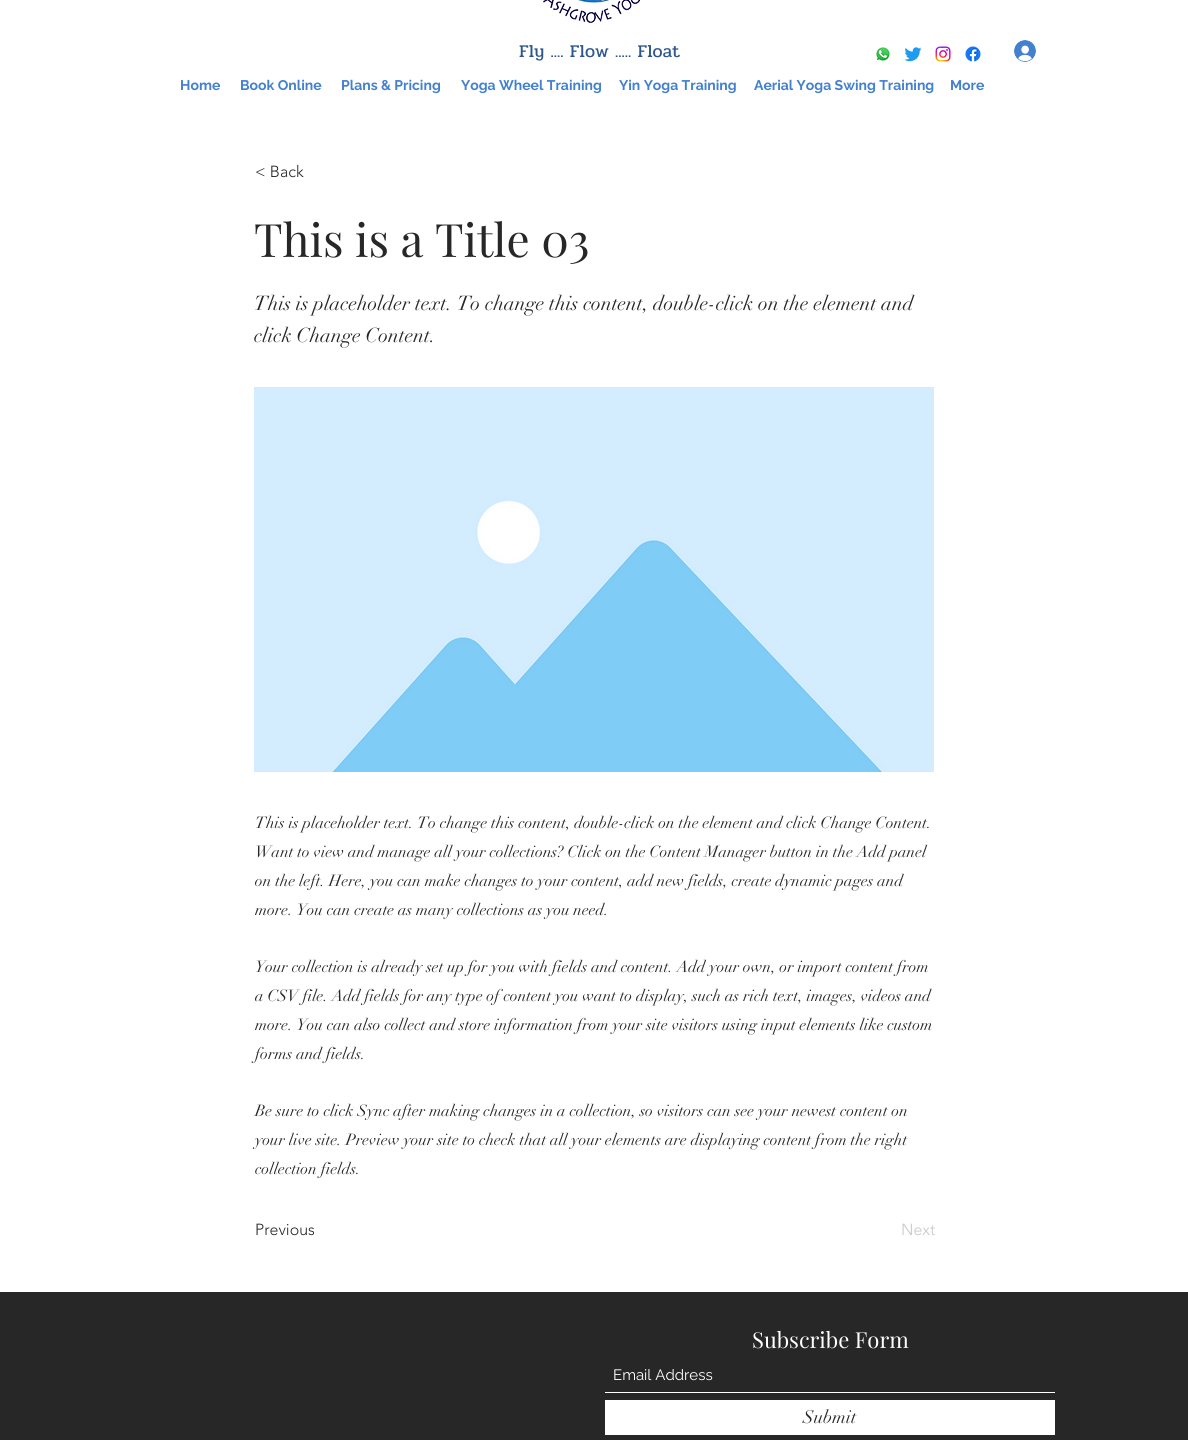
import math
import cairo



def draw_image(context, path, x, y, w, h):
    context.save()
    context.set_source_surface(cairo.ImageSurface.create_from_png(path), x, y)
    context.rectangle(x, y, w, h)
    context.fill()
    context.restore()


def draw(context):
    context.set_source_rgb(1, 1, 1)
    context.paint()
    draw_image(context, "images/1.png", 541, 0, 101, 23)
    draw_image(context, "images/2.png", 875, 47, 16, 15)
    draw_image(context, "images/3.png", 904, 47, 18, 15)
    draw_image(context, "images/4.png", 935, 46, 16, 16)
    draw_image(context, "images/5.png", 965, 46, 16, 16)
    draw_image(context, "images/6.png", 1014, 40, 22, 22)
    draw_image(context, "images/7.png", 254, 387, 680, 385)
    context.set_source_rgb(39 / 255, 39 / 255, 39 / 255)
    context.rectangle(0, 1292, 1188, 148)
    context.fill()
    context.set_source_rgb(1, 1, 1)
    context.rectangle(605, 1392, 450, 1)
    context.fill()
    context.rectangle(605, 1400, 450, 35)
    context.fill()
    context.select_font_face("Pridi")
    context.set_font_size(18)
    context.set_source_rgb(45 / 255, 86 / 255, 138 / 255)
    context.move_to(519, 57)
    context.show_text("Fly .... Flow ..... Float")
    context.select_font_face("Raleway", cairo.FontSlant.NORMAL, cairo.FontWeight.BOLD)
    context.set_font_size(14)
    context.set_source_rgb(67 / 255, 129 / 255, 207 / 255)
    context.move_to(180, 90)
    context.show_text("Home")
    context.move_to(240, 90)
    context.show_text("Book Online")
    context.move_to(341, 90)
    context.show_text("Plans & Pricing")
    context.move_to(461, 90)
    context.show_text("Yoga Wheel Training")
    context.move_to(619, 90)
    context.show_text("Yin Yoga Training")
    context.move_to(754, 90)
    context.show_text("Aerial Yoga Swing Training")
    context.move_to(950, 90)
    context.show_text("More")
    context.select_font_face("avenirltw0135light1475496 Light")
    context.set_font_size(16)
    context.set_source_rgb(39 / 255, 39 / 255, 39 / 255)
    context.move_to(255, 177)
    context.show_text("< Back")
    context.select_font_face("Playfair Display")
    context.set_font_size(46)
    context.move_to(254, 257)
    context.show_text("This is a Title 03")
    context.select_font_face("didot")
    context.set_font_size(20)
    context.move_to(254, 310)
    context.show_text("This is placeholder text. To change this content, double-click on the element and")
    context.move_to(254, 342)
    context.show_text("click Change Content.")
    context.set_font_size(16)
    context.move_to(255, 828)
    context.show_text("This is placeholder text. To change this content, double-click on the element and click Change Content.")
    context.move_to(255, 857)
    context.show_text("Want to view and manage all your collections? Click on the Content Manager button in the Add panel")
    context.move_to(255, 886)
    context.show_text("on the left. Here, you can make changes to your content, add new fields, create dynamic pages and")
    context.move_to(255, 915)
    context.show_text("more. You can create as many collections as you need.")
    context.move_to(255, 972)
    context.show_text("Your collection is already set up for you with fields and content. Add your own, or import content from")
    context.move_to(255, 1001)
    context.show_text("a CSV file. Add fields for any type of content you want to display, such as rich text, images, videos and")
    context.move_to(255, 1030)
    context.show_text("more. You can also collect and store information from your site visitors using input elements like custom")
    context.move_to(255, 1059)
    context.show_text("forms and fields.")
    context.move_to(255, 1116)
    context.show_text("Be sure to click Sync after making changes in a collection, so visitors can see your newest content on")
    context.move_to(255, 1145)
    context.show_text("your live site. Preview your site to check that all your elements are displaying content from the right")
    context.move_to(255, 1174)
    context.show_text("collection fields.")
    context.select_font_face("avenirltw0135light1475496 Light")
    context.move_to(255, 1235)
    context.show_text("Previous")
    context.set_source_rgb(199 / 255, 199 / 255, 199 / 255)
    context.move_to(901, 1235)
    context.show_text("Next")
    context.select_font_face("Playfair Display")
    context.set_font_size(22)
    context.set_source_rgb(1, 1, 1)
    context.move_to(752, 1348)
    context.show_text("Subscribe Form")
    context.select_font_face("Raleway")
    context.set_font_size(15)
    context.move_to(613, 1380)
    context.show_text("Email Address")
    context.select_font_face("didot")
    context.set_font_size(18)
    context.set_source_rgb(39 / 255, 39 / 255, 39 / 255)
    context.move_to(803, 1423)
    context.show_text("Submit")


surface = cairo.ImageSurface(cairo.Format.RGB24, 1188, 1440)
context = cairo.Context(surface)
options = cairo.FontOptions()
options.set_hint_metrics(cairo.HintMetrics.OFF)
options.set_hint_style(cairo.HintStyle.NONE)
context.set_font_options(options)
context.set_miter_limit(4)
draw(context)
surface.write_to_png("out.png")
